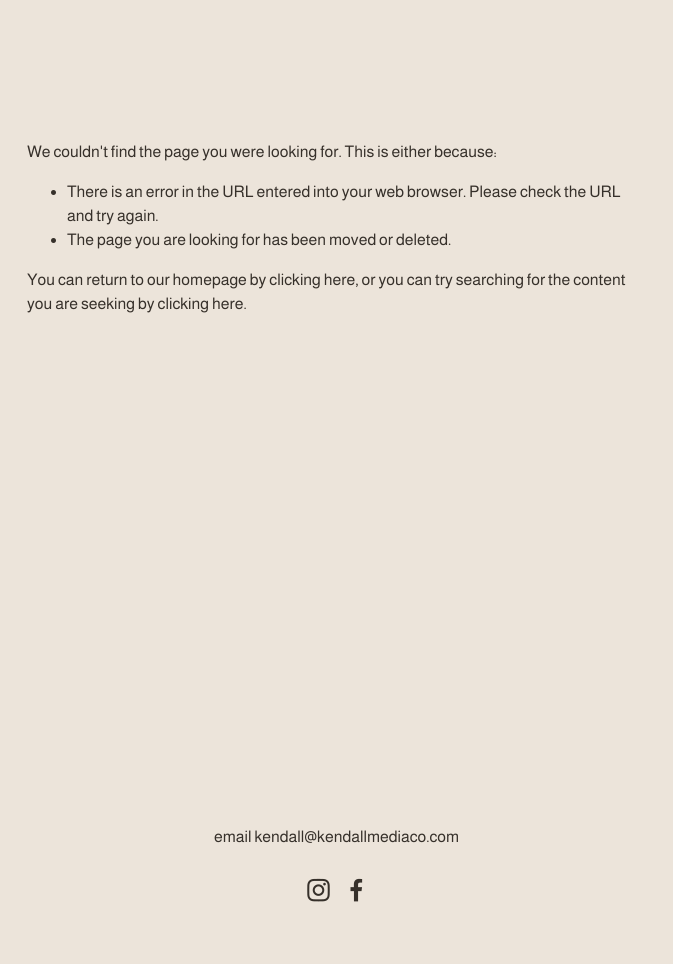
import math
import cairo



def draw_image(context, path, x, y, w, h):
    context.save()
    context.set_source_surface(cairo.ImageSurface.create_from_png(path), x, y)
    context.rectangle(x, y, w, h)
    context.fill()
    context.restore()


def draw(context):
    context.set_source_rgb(236 / 255, 228 / 255, 218 / 255)
    context.paint()
    context.set_source_rgb(54 / 255, 48 / 255, 42 / 255)
    context.arc(53.5, 192.5, 2.5, 0, 2 * math.pi)
    context.fill()
    context.arc(53.5, 240.5, 2.5, 0, 2 * math.pi)
    context.fill()
    draw_image(context, "images/1.png", 307, 878, 23, 24)
    draw_image(context, "images/2.png", 350, 878, 13, 24)
    context.select_font_face("Almarai")
    context.set_font_size(16)
    context.move_to(27, 157)
    context.show_text("We couldn't find the page you were looking for. This is either because:")
    context.move_to(67, 197)
    context.show_text("There is an error in the URL entered into your web browser. Please check the URL")
    context.move_to(67, 221)
    context.show_text("and try again.")
    context.move_to(67, 245)
    context.show_text("The page you are looking for has been moved or deleted.")
    context.move_to(27, 285)
    context.show_text("You can return to our homepage by clicking here, or you can try searching for the content")
    context.move_to(27, 309)
    context.show_text("you are seeking by clicking here.")
    context.move_to(214, 842)
    context.show_text("email kendall@kendallmediaco.com")


surface = cairo.ImageSurface(cairo.Format.RGB24, 673, 964)
context = cairo.Context(surface)
options = cairo.FontOptions()
options.set_hint_metrics(cairo.HintMetrics.OFF)
options.set_hint_style(cairo.HintStyle.NONE)
context.set_font_options(options)
context.set_miter_limit(4)
draw(context)
surface.write_to_png("out.png")
